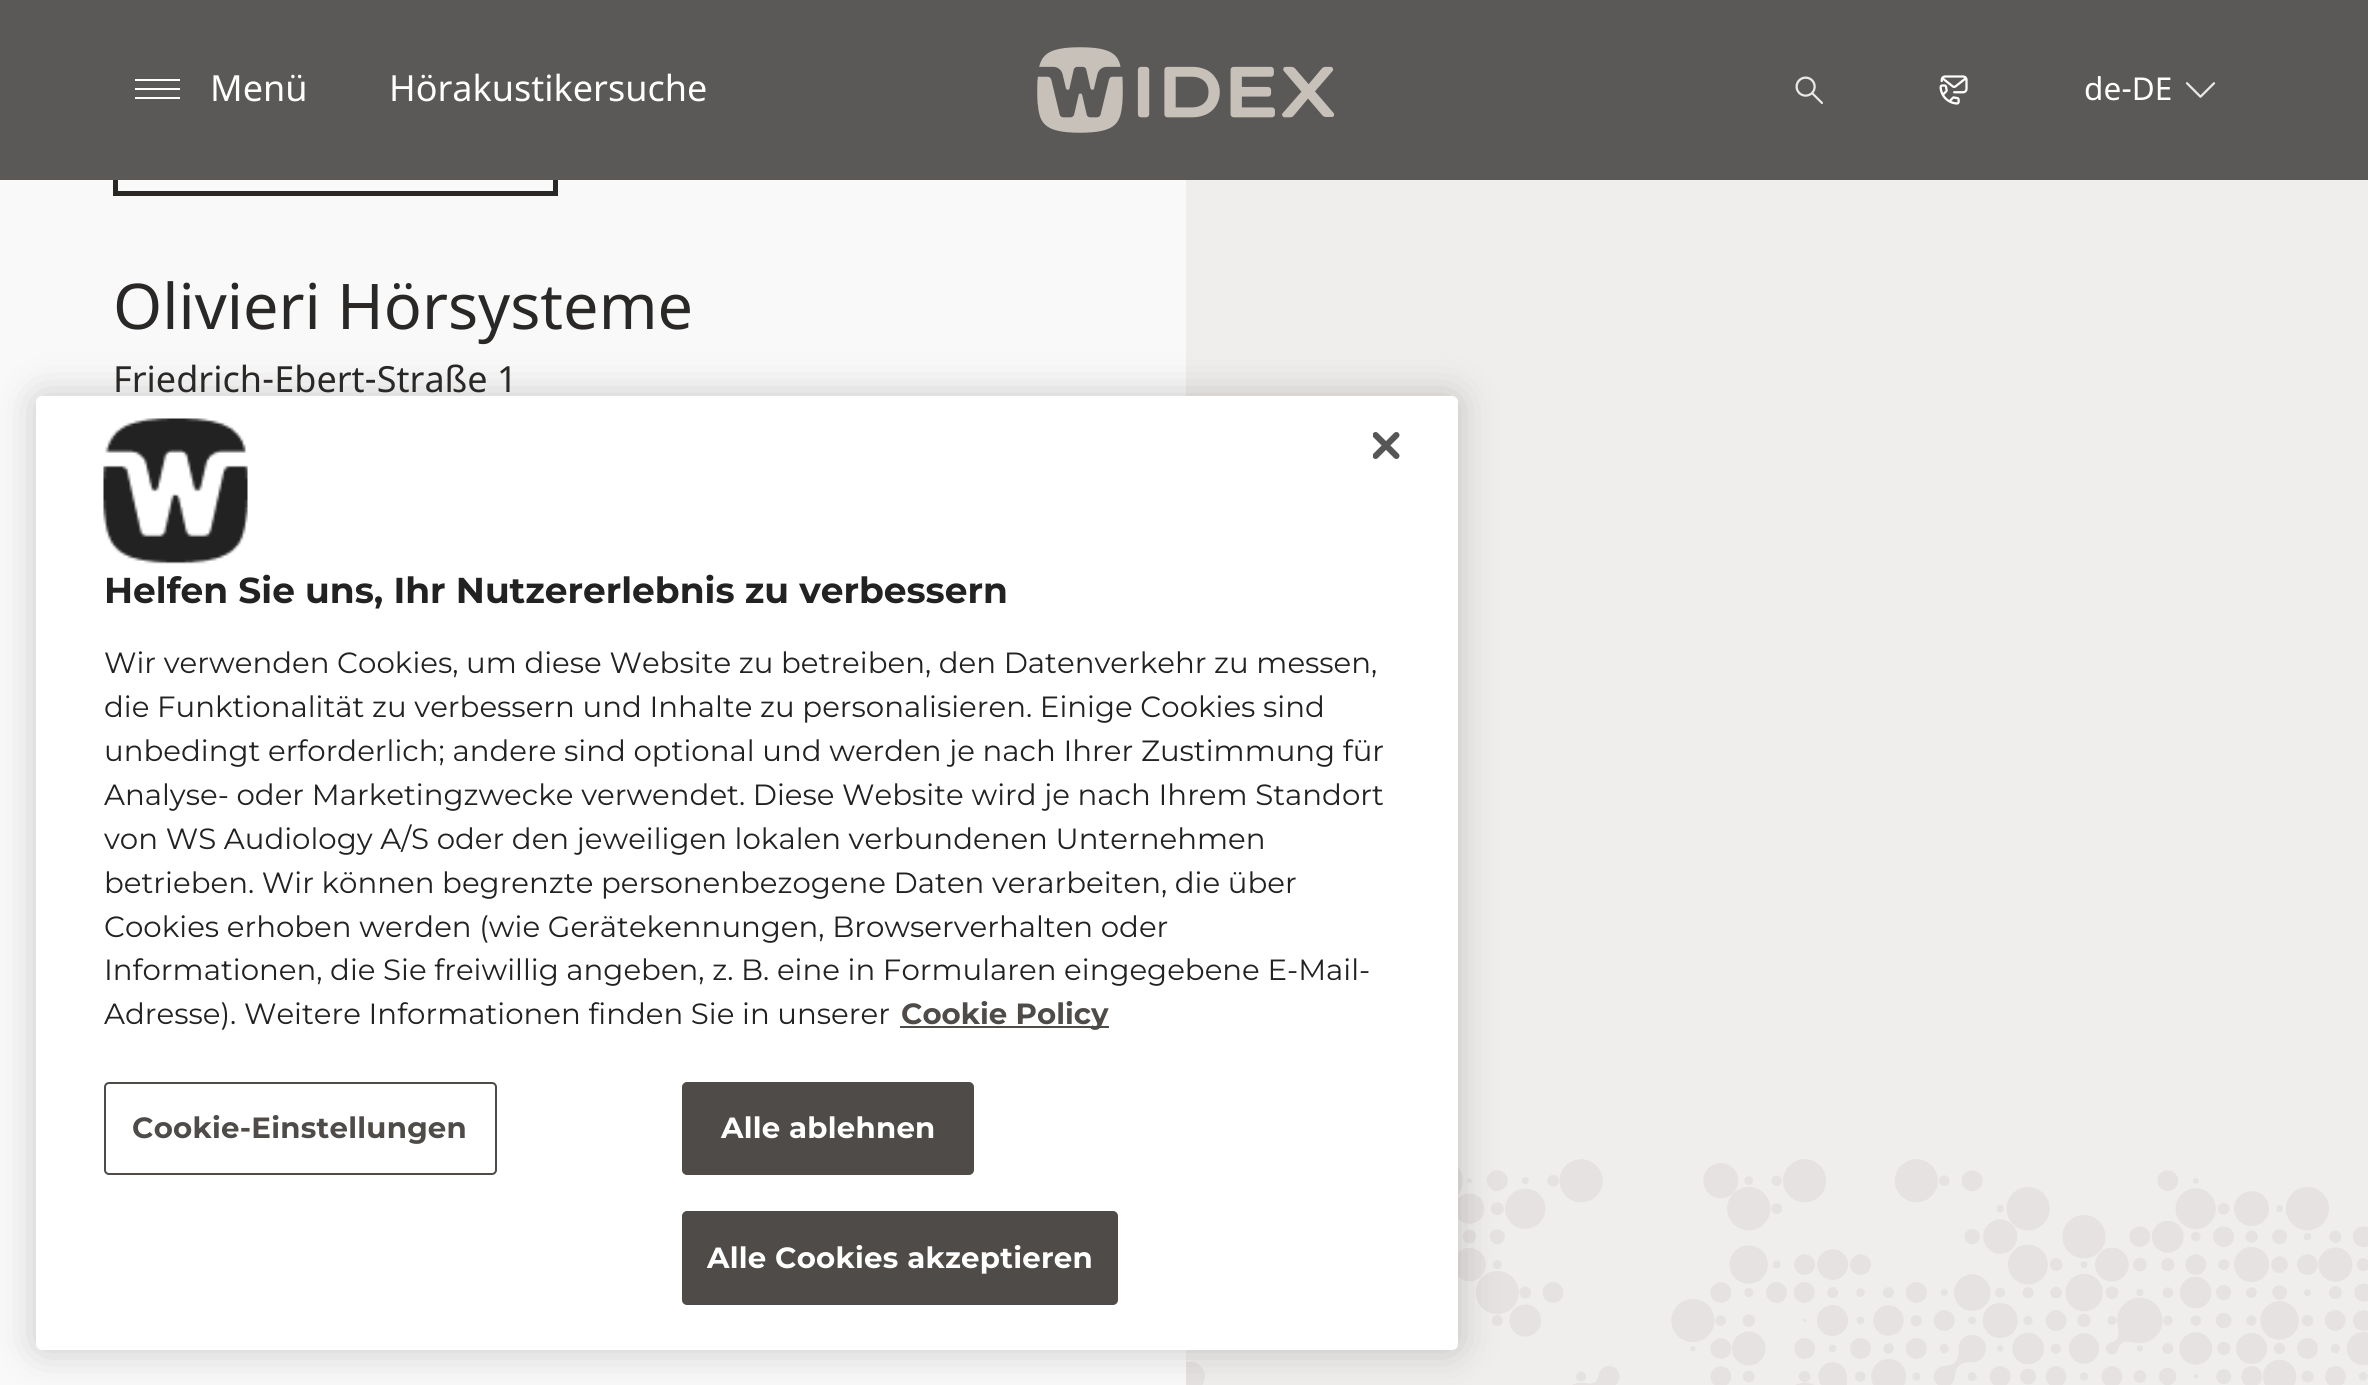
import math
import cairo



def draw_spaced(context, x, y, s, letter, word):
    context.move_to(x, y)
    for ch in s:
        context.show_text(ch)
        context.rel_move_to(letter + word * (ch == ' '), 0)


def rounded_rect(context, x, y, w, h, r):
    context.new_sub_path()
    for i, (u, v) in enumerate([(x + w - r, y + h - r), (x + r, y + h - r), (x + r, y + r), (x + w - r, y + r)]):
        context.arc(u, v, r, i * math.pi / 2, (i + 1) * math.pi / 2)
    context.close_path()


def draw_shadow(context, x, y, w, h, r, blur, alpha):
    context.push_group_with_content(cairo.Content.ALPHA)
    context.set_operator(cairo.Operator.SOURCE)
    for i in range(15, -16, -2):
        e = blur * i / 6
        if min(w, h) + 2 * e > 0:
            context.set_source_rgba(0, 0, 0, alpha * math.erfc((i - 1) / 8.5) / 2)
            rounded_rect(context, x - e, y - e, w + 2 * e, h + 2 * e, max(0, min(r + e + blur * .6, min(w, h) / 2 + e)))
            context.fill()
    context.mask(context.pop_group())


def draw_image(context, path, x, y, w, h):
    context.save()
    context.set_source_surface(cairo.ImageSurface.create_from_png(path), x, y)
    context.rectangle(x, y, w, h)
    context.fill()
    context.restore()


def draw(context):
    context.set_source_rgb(249 / 255, 249 / 255, 249 / 255)
    context.paint()
    context.rectangle(115.5, 63.5, 440, 130)
    context.set_source_rgb(42 / 255, 40 / 255, 38 / 255)
    context.set_line_width(5)
    context.stroke()
    context.set_source_rgb(91 / 255, 89 / 255, 88 / 255)
    context.rectangle(0, 0, 2368, 180)
    context.fill()
    context.set_source_rgb(1, 1, 1)
    context.rectangle(135, 88, 45, 2)
    context.fill()
    context.rectangle(135, 79, 45, 2)
    context.fill()
    context.rectangle(135, 97, 45, 2)
    context.fill()
    draw_image(context, "images/1.png", 1037, 47, 297, 86)
    draw_image(context, "images/2.png", 1795, 76, 28, 28)
    draw_image(context, "images/3.png", 1939, 75, 29, 30)
    draw_image(context, "images/4.png", 2185, 82, 31, 16)
    context.set_source_rgb(239 / 255, 238 / 255, 237 / 255)
    context.rectangle(1186, 180, 1182, 1205)
    context.fill()
    draw_image(context, "images/5.png", 1186, 1159, 1182, 226)
    context.set_source_rgb(0, 0, 0)
    draw_shadow(context, 36, 396, 1422, 954, 6, 20, 0.2)
    context.set_source_rgb(1, 1, 1)
    rounded_rect(context, 36, 396, 1422, 954, 6)
    context.fill()
    draw_image(context, "images/6.png", 1373, 432, 27, 27)
    draw_image(context, "images/7.png", 103, 418, 145, 146)
    context.set_source_rgb(78 / 255, 75 / 255, 72 / 255)
    context.rectangle(900, 1026, 209, 2)
    context.fill()
    rounded_rect(context, 105, 1083, 391, 91, 4)
    context.set_line_width(2)
    context.stroke()
    rounded_rect(context, 683, 1083, 290, 91, 4)
    context.fill_preserve()
    context.stroke()
    rounded_rect(context, 683, 1212, 434, 92, 4)
    context.fill_preserve()
    context.stroke()
    context.select_font_face("Noto Sans")
    context.set_font_size(36)
    context.set_source_rgb(1, 1, 1)
    context.move_to(210, 101)
    context.show_text("Menü")
    context.move_to(389, 101)
    context.show_text("Hörakustikersuche")
    context.set_font_size(31.5)
    context.move_to(2084, 100)
    context.show_text("de-DE")
    context.set_font_size(63)
    context.set_source_rgb(42 / 255, 40 / 255, 38 / 255)
    context.move_to(113, 329)
    context.show_text("Olivieri Hörsysteme")
    context.set_font_size(36)
    context.move_to(113, 392)
    context.show_text("Friedrich-Ebert-Straße 1")
    context.select_font_face("Montserrat", cairo.FontSlant.NORMAL, cairo.FontWeight.BOLD)
    context.set_source_rgb(34 / 255, 34 / 255, 34 / 255)
    context.move_to(104, 603)
    context.show_text("Helfen Sie uns, Ihr Nutzererlebnis zu verbessern")
    context.select_font_face("Montserrat")
    context.set_font_size(29.25)
    context.move_to(104, 673)
    context.show_text("Wir verwenden Cookies, um diese Website zu betreiben, den Datenverkehr zu messen,")
    context.move_to(104, 717)
    context.show_text("die Funktionalität zu verbessern und Inhalte zu personalisieren. Einige Cookies sind")
    context.move_to(104, 761)
    context.show_text("unbedingt erforderlich; andere sind optional und werden je nach Ihrer Zustimmung für")
    context.move_to(104, 805)
    context.show_text("Analyse- oder Marketingzwecke verwendet. Diese Website wird je nach Ihrem Standort")
    context.move_to(104, 849)
    context.show_text("von WS Audiology A/S oder den jeweiligen lokalen verbundenen Unternehmen")
    context.move_to(104, 893)
    context.show_text("betrieben. Wir können begrenzte personenbezogene Daten verarbeiten, die über")
    context.move_to(104, 937)
    context.show_text("Cookies erhoben werden (wie Gerätekennungen, Browserverhalten oder")
    context.move_to(104, 980)
    context.show_text("Informationen, die Sie freiwillig angeben, z. B. eine in Formularen eingegebene E-Mail-")
    context.move_to(104, 1024)
    context.show_text("Adresse). Weitere Informationen finden Sie in unserer")
    context.select_font_face("Montserrat", cairo.FontSlant.NORMAL, cairo.FontWeight.BOLD)
    context.set_source_rgb(78 / 255, 75 / 255, 72 / 255)
    context.move_to(901, 1024)
    context.show_text("Cookie Policy")
    draw_spaced(context, 132, 1138, "Cookie-Einstellungen", 0.25, 0)
    context.set_source_rgb(1, 1, 1)
    draw_spaced(context, 721, 1138, "Alle ablehnen", 0.25, 0)
    draw_spaced(context, 707, 1268, "Alle Cookies akzeptieren", 0.25, 0)


surface = cairo.ImageSurface(cairo.Format.RGB24, 2368, 1385)
context = cairo.Context(surface)
options = cairo.FontOptions()
options.set_hint_metrics(cairo.HintMetrics.OFF)
options.set_hint_style(cairo.HintStyle.NONE)
context.set_font_options(options)
context.set_miter_limit(4)
draw(context)
surface.write_to_png("out.png")
